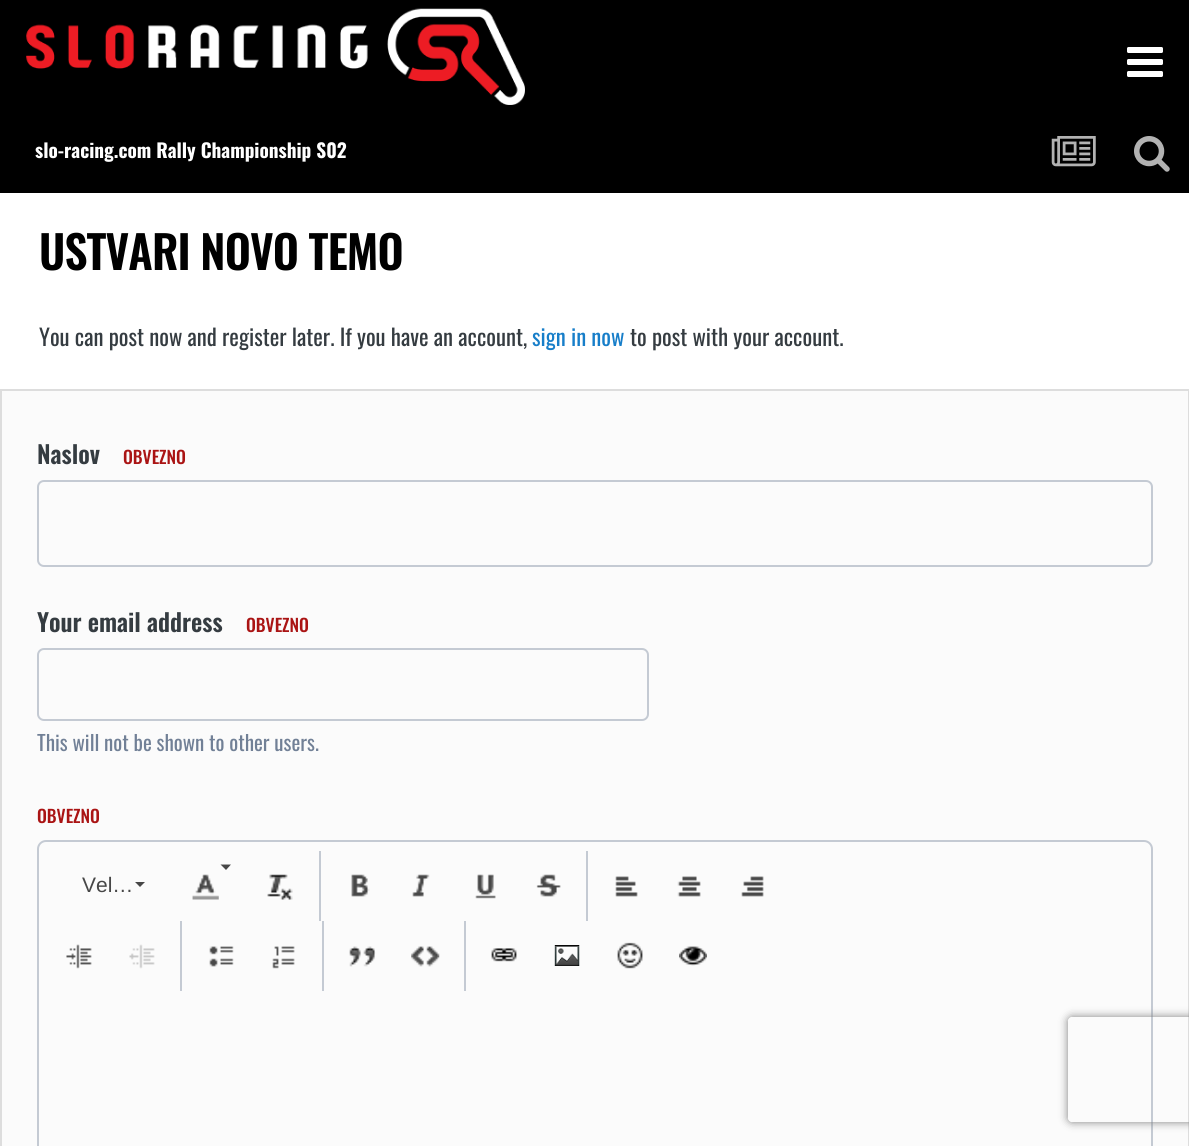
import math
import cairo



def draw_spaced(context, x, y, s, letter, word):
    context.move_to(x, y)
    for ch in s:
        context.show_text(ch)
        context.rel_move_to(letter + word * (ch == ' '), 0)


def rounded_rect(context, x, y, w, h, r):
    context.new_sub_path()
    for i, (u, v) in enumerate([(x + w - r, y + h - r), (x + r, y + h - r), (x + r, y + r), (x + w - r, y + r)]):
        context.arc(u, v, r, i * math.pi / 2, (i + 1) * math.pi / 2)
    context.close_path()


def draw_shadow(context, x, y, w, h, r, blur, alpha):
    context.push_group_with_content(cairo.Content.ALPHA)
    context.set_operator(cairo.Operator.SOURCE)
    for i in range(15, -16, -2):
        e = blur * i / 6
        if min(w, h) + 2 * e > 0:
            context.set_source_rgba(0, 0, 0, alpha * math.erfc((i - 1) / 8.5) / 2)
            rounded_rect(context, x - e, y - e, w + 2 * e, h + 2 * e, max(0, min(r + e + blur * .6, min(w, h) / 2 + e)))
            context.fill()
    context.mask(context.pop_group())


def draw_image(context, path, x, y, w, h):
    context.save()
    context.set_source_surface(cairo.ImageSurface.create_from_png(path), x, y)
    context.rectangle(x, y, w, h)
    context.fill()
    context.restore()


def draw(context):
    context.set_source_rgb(1, 1, 1)
    context.paint()
    draw_image(context, "images/1.png", 0, 0, 1189, 105)
    draw_image(context, "images/2.png", 26, 8, 499, 97)
    draw_image(context, "images/3.png", 1127, 47, 36, 30)
    context.set_source_rgb(0, 0, 0)
    context.rectangle(0, 105, 1189, 88)
    context.fill()
    draw_image(context, "images/4.png", 1051, 136, 45, 31)
    draw_image(context, "images/5.png", 1134, 136, 36, 36)
    context.set_source_rgb(251 / 255, 251 / 255, 251 / 255)
    context.rectangle(1, 390, 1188, 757)
    context.fill_preserve()
    context.set_source_rgb(221 / 255, 221 / 255, 221 / 255)
    context.stroke()
    rounded_rect(context, 38, 481, 1114, 85, 6)
    context.set_source_rgb(196 / 255, 202 / 255, 211 / 255)
    context.stroke()
    rounded_rect(context, 38, 649, 610, 71, 6)
    context.stroke()
    rounded_rect(context, 38, 841, 1114, 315, 8)
    context.stroke()
    context.set_source_rgb(71 / 255, 71 / 255, 71 / 255)
    context.new_path()
    context.move_to(135, 882)
    context.line_to(145, 882)
    context.line_to(140, 887)
    context.close_path()
    context.fill()
    context.new_path()
    context.move_to(220.5, 864.5)
    context.line_to(231, 864.5)
    context.line_to(226, 870)
    context.close_path()
    context.fill()
    draw_image(context, "images/6.png", 192, 874, 27, 26)
    draw_image(context, "images/7.png", 267, 874, 26, 26)
    context.set_source_rgb(196 / 255, 202 / 255, 211 / 255)
    context.rectangle(319, 851, 2, 70)
    context.fill()
    draw_image(context, "images/8.png", 351, 874, 19, 23)
    draw_image(context, "images/9.png", 412, 874, 18, 23)
    draw_image(context, "images/10.png", 475, 874, 21, 25)
    draw_image(context, "images/11.png", 536, 874, 25, 23)
    context.rectangle(586, 851, 2, 70)
    context.fill()
    draw_image(context, "images/12.png", 615, 876, 23, 21)
    draw_image(context, "images/13.png", 677, 876, 24, 21)
    draw_image(context, "images/14.png", 741, 876, 23, 21)
    draw_image(context, "images/15.png", 66, 944, 26, 25)
    draw_image(context, "images/16.png", 129, 944, 26, 25)
    context.rectangle(180, 921, 2, 70)
    context.fill()
    draw_image(context, "images/17.png", 209, 946, 25, 21)
    draw_image(context, "images/18.png", 272, 946, 23, 23)
    context.rectangle(322, 921, 2, 70)
    context.fill()
    draw_image(context, "images/19.png", 349, 946, 27, 21)
    draw_image(context, "images/20.png", 411, 946, 29, 21)
    context.rectangle(464, 921, 2, 70)
    context.fill()
    draw_image(context, "images/21.png", 491, 948, 26, 14)
    draw_image(context, "images/22.png", 554, 945, 26, 21)
    draw_image(context, "images/23.png", 617, 942, 26, 27)
    draw_image(context, "images/24.png", 679, 946, 28, 20)
    context.save()
    context.set_fill_rule(cairo.FillRule.EVEN_ODD)
    context.new_path()
    context.move_to(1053, 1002)
    context.line_to(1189, 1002)
    context.line_to(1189, 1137)
    context.line_to(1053, 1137)
    context.close_path()
    context.move_to(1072, 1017)
    context.line_to(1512, 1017)
    context.curve_to(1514, 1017, 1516, 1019, 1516, 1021)
    context.line_to(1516, 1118)
    context.curve_to(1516, 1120, 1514, 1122, 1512, 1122)
    context.line_to(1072, 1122)
    context.curve_to(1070, 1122, 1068, 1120, 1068, 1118)
    context.line_to(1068, 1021)
    context.curve_to(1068, 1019, 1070, 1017, 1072, 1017)
    context.close_path()
    context.clip()
    context.set_source_rgb(128 / 255, 128 / 255, 128 / 255)
    draw_shadow(context, 1068, 1017, 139, 105, 4, 4.5, 1)
    context.restore()
    context.select_font_face("Oswald", cairo.FontSlant.NORMAL, cairo.FontWeight.BOLD)
    context.set_font_size(19.25)
    context.set_source_rgb(1, 1, 1)
    context.move_to(35, 158)
    context.show_text("slo-racing.com Rally Championship S02")
    context.select_font_face("Oswald SemiBold")
    context.set_font_size(45.5)
    context.set_source_rgb(0, 0, 0)
    draw_spaced(context, 39, 270, "USTVARI NOVO TEMO", -0.9, 0)
    context.select_font_face("Oswald")
    context.set_font_size(22.75)
    context.set_source_rgb(53 / 255, 60 / 255, 65 / 255)
    context.move_to(39, 346)
    context.show_text("You can post now and register later. If you have an account,")
    context.set_source_rgb(23 / 255, 126 / 255, 201 / 255)
    context.move_to(532, 346)
    context.show_text("sign in now")
    context.set_source_rgb(53 / 255, 60 / 255, 65 / 255)
    context.move_to(630, 346)
    context.show_text("to post with your account.")
    context.select_font_face("Oswald SemiBold")
    context.set_font_size(24.5)
    context.move_to(37, 464)
    context.show_text("Naslov")
    context.select_font_face("Oswald Medium")
    context.set_font_size(17.5)
    context.set_source_rgb(170 / 255, 20 / 255, 20 / 255)
    context.move_to(123, 464)
    context.show_text("OBVEZNO")
    context.select_font_face("Oswald SemiBold")
    context.set_font_size(24.5)
    context.set_source_rgb(53 / 255, 60 / 255, 65 / 255)
    context.move_to(37, 632)
    context.show_text("Your email address")
    context.select_font_face("Oswald Medium")
    context.set_font_size(17.5)
    context.set_source_rgb(170 / 255, 20 / 255, 20 / 255)
    context.move_to(246, 632)
    context.show_text("OBVEZNO")
    context.select_font_face("Oswald")
    context.set_font_size(21)
    context.set_source_rgb(113 / 255, 128 / 255, 150 / 255)
    context.move_to(37, 751)
    context.show_text("This will not be shown to other users.")
    context.select_font_face("Oswald Medium")
    context.set_font_size(17.5)
    context.set_source_rgb(170 / 255, 20 / 255, 20 / 255)
    context.move_to(37, 823)
    context.show_text("OBVEZNO")
    context.select_font_face("Liberation Sans")
    context.set_font_size(21)
    context.set_source_rgb(71 / 255, 71 / 255, 71 / 255)
    context.move_to(82, 892)
    context.show_text("Vel…")


surface = cairo.ImageSurface(cairo.Format.RGB24, 1189, 1146)
context = cairo.Context(surface)
options = cairo.FontOptions()
options.set_hint_metrics(cairo.HintMetrics.OFF)
options.set_hint_style(cairo.HintStyle.NONE)
context.set_font_options(options)
context.set_miter_limit(4)
draw(context)
surface.write_to_png("out.png")
